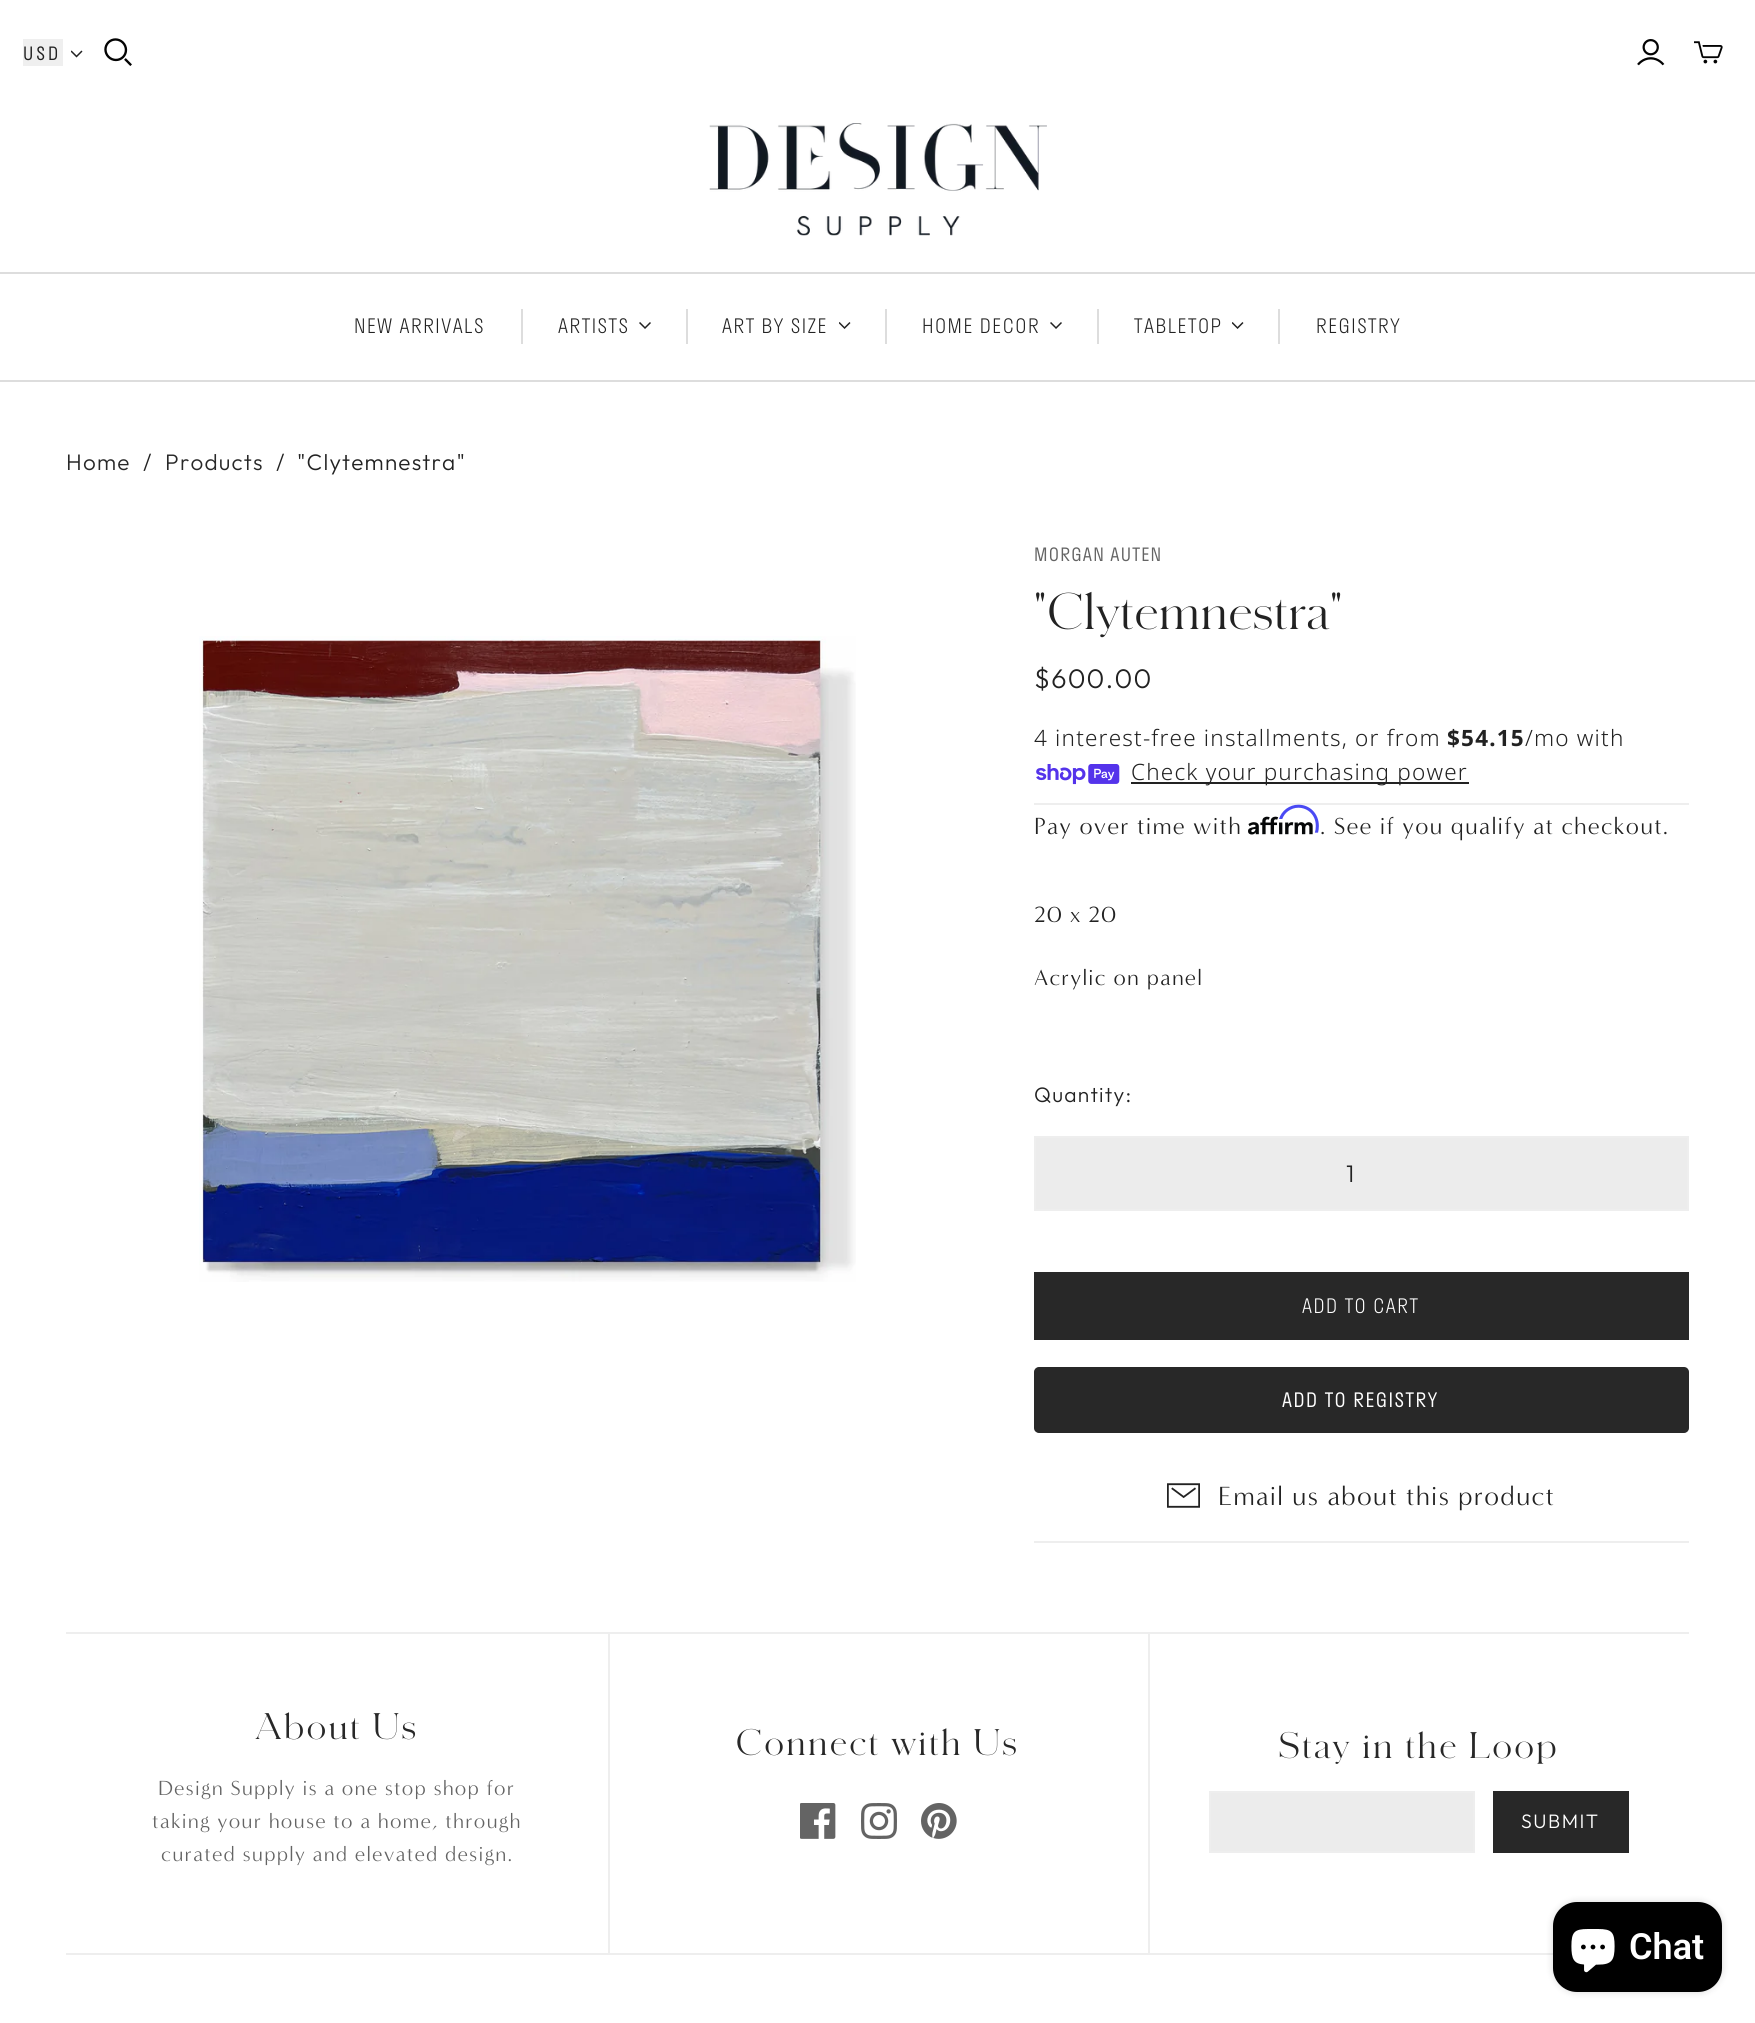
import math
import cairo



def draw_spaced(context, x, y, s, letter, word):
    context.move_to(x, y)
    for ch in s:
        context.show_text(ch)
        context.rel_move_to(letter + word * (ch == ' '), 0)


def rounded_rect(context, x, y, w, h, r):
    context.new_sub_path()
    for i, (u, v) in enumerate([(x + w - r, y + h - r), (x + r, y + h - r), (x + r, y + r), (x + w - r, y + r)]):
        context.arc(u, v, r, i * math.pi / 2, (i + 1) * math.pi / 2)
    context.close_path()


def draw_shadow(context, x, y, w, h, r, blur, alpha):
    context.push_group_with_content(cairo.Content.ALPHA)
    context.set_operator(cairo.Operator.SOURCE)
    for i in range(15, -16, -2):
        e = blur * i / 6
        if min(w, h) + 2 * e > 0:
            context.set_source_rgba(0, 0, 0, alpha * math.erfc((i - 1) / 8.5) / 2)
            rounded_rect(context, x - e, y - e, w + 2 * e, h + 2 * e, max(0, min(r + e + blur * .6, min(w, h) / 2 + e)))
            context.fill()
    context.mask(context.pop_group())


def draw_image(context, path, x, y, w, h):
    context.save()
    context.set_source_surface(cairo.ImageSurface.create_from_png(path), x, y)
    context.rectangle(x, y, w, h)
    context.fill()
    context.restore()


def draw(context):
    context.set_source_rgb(1, 1, 1)
    context.paint()
    context.set_source_rgb(239 / 255, 239 / 255, 239 / 255)
    context.rectangle(23, 39, 40, 27)
    context.fill()
    draw_image(context, "images/1.png", 71, 50, 12, 8)
    draw_image(context, "images/2.png", 104, 38, 28, 28)
    draw_image(context, "images/3.png", 1637, 39, 28, 27)
    draw_image(context, "images/4.png", 1694, 41, 29, 23)
    draw_image(context, "images/5.png", 709, 123, 338, 113)
    context.set_source_rgb(221 / 255, 221 / 255, 221 / 255)
    context.rectangle(0, 272, 1755, 2)
    context.fill()
    context.rectangle(0, 380, 1755, 2)
    context.fill()
    context.rectangle(521, 309, 2, 35)
    context.fill()
    draw_image(context, "images/6.png", 639, 322, 12, 7)
    context.rectangle(686, 309, 2, 35)
    context.fill()
    draw_image(context, "images/7.png", 839, 322, 12, 7)
    context.rectangle(885, 309, 2, 35)
    context.fill()
    draw_image(context, "images/6.png", 1050, 322, 12, 7)
    context.rectangle(1097, 309, 2, 35)
    context.fill()
    draw_image(context, "images/7.png", 1232, 322, 12, 7)
    context.rectangle(1278, 309, 2, 35)
    context.fill()
    draw_image(context, "images/8.png", 199, 636, 657, 646)
    context.set_source_rgb(238 / 255, 238 / 255, 238 / 255)
    context.rectangle(1034, 803, 655, 2)
    context.fill()
    draw_image(context, "images/9.png", 1036, 764, 84, 21)
    context.set_source_rgb(34 / 255, 34 / 255, 34 / 255)
    context.rectangle(1131, 782, 338, 2)
    context.fill()
    draw_image(context, "images/11.png", 1248, 816, 65, 19)
    draw_image(context, "images/10.png", 1279, 804, 40, 29)
    context.set_source_rgb(236 / 255, 236 / 255, 236 / 255)
    context.rectangle(1035, 1137, 653, 73)
    context.fill_preserve()
    context.set_source_rgb(238 / 255, 238 / 255, 238 / 255)
    context.stroke()
    context.set_source_rgb(40 / 255, 40 / 255, 40 / 255)
    context.rectangle(1034, 1272, 655, 68)
    context.fill()
    rounded_rect(context, 1035, 1368, 653, 64, 4)
    context.fill_preserve()
    context.stroke()
    context.set_source_rgb(238 / 255, 238 / 255, 238 / 255)
    context.rectangle(1034, 1541, 655, 2)
    context.fill()
    draw_image(context, "images/12.png", 1167, 1483, 33, 25)
    context.rectangle(66, 1632, 1623, 2)
    context.fill()
    context.rectangle(66, 1953, 1487, 2)
    context.fill()
    context.rectangle(608, 1634, 2, 319)
    context.fill()
    draw_image(context, "images/13.png", 800, 1803, 36, 36)
    draw_image(context, "images/14.png", 861, 1803, 36, 36)
    draw_image(context, "images/15.png", 921, 1803, 36, 36)
    context.rectangle(1148, 1634, 2, 319)
    context.fill()
    context.set_source_rgb(236 / 255, 236 / 255, 236 / 255)
    context.rectangle(1210, 1792, 264, 60)
    context.fill_preserve()
    context.set_source_rgb(238 / 255, 238 / 255, 238 / 255)
    context.stroke()
    context.set_source_rgb(40 / 255, 40 / 255, 40 / 255)
    context.rectangle(1493, 1791, 136, 62)
    context.fill()
    context.set_source_rgb(0, 0, 0)
    draw_shadow(context, 1553, 1902, 169, 90, 24, 4, 0.15)
    context.set_source_rgb(0, 0, 0)
    rounded_rect(context, 1553, 1902, 169, 90, 24)
    context.fill()
    draw_image(context, "images/16.png", 1571, 1929, 44, 44)
    context.select_font_face("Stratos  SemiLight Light")
    context.set_font_size(18)
    context.set_source_rgb(34 / 255, 34 / 255, 34 / 255)
    draw_spaced(context, 23, 60, "USD", 3, 0)
    context.select_font_face("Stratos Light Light")
    context.set_font_size(19.5)
    draw_spaced(context, 354, 333, "NEW ARRIVALS", 1.5, 0)
    draw_spaced(context, 558, 333, "ARTISTS", 1.5, 0)
    draw_spaced(context, 722, 333, "ART BY SIZE", 1.5, 0)
    draw_spaced(context, 922, 333, "HOME DECOR", 1.5, 0)
    draw_spaced(context, 1134, 333, "TABLETOP", 1.5, 0)
    draw_spaced(context, 1316, 333, "REGISTRY", 1.5, 0)
    context.select_font_face("Outfit Light")
    context.set_font_size(22.5)
    context.set_source_rgb(40 / 255, 40 / 255, 40 / 255)
    draw_spaced(context, 66, 470, "Home", 1.2, 0)
    context.set_source_rgb(34 / 255, 34 / 255, 34 / 255)
    draw_spaced(context, 143, 470, "/", 1.2, 0)
    context.set_source_rgb(40 / 255, 40 / 255, 40 / 255)
    draw_spaced(context, 165, 470, "Products", 1.2, 0)
    context.set_source_rgb(34 / 255, 34 / 255, 34 / 255)
    draw_spaced(context, 276, 470, "/", 1.2, 0)
    draw_spaced(context, 297, 470, "\"Clytemnestra\"", 1.2, 0)
    context.select_font_face("Stratos  SemiLight Light")
    context.set_font_size(18)
    context.set_source_rgb(100 / 255, 100 / 255, 100 / 255)
    draw_spaced(context, 1034, 561, "MORGAN AUTEN", 1.2, 0)
    context.select_font_face("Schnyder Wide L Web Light")
    context.set_font_size(48)
    context.set_source_rgb(34 / 255, 34 / 255, 34 / 255)
    draw_spaced(context, 1034, 629, "\"Clytemnestra\"", 1.2, 0)
    context.select_font_face("Outfit Light")
    context.set_font_size(27)
    draw_spaced(context, 1034, 688, "$600.00", 1.2, 0)
    context.select_font_face("Noto Sans Light")
    context.set_font_size(22.5)
    draw_spaced(context, 1034, 746, "4 interest-free installments, or from", 1.2, 0)
    context.select_font_face("Noto Sans", cairo.FontSlant.NORMAL, cairo.FontWeight.BOLD)
    draw_spaced(context, 1447, 746, "$54.15", 1.2, 0)
    context.select_font_face("Noto Sans Light")
    draw_spaced(context, 1525, 746, "/mo with", 1.2, 0)
    draw_spaced(context, 1131, 780, "Check your purchasing power", 1.2, 0)
    context.select_font_face("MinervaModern")
    context.set_font_size(24)
    draw_spaced(context, 1034, 834, "Pay over time with", 1.2, 0)
    draw_spaced(context, 1320, 834, ". See if you qualify at checkout.", 1.2, 0)
    context.set_font_size(22.5)
    draw_spaced(context, 1034, 922, "20 x 20", 1.2, 0)
    draw_spaced(context, 1034, 985, "Acrylic on panel", 1.2, 0)
    context.select_font_face("Outfit Light")
    context.set_font_size(21)
    draw_spaced(context, 1034, 1102, "Quantity:", 1.2, 0)
    context.set_font_size(24)
    context.move_to(1346, 1182)
    context.show_text("1")
    context.select_font_face("Stratos Light Light")
    context.set_font_size(19.5)
    context.set_source_rgb(1, 1, 1)
    draw_spaced(context, 1302, 1313, "ADD TO CART", 1.5, 0)
    context.select_font_face("Stratos  SemiLight Light")
    draw_spaced(context, 1282, 1407, "ADD TO REGISTRY", 1.5, 0)
    context.select_font_face("MinervaModern")
    context.set_font_size(27)
    context.set_source_rgb(34 / 255, 34 / 255, 34 / 255)
    draw_spaced(context, 1218, 1505, "Email us about this product", 1.2, 0)
    context.select_font_face("Schnyder Wide L Web Light")
    context.set_font_size(34.5)
    context.set_source_rgb(40 / 255, 40 / 255, 40 / 255)
    draw_spaced(context, 255, 1739, "About Us", 2.75, 0)
    context.select_font_face("MinervaModern")
    context.set_font_size(21)
    context.set_source_rgb(100 / 255, 100 / 255, 100 / 255)
    draw_spaced(context, 158, 1795, "Design Supply is a one stop shop for", 1.2, 0)
    draw_spaced(context, 152, 1828, "taking your house to a home, through", 1.2, 0)
    draw_spaced(context, 161, 1861, "curated supply and elevated design.", 1.2, 0)
    context.select_font_face("Schnyder Wide L Web Light")
    context.set_font_size(34.5)
    context.set_source_rgb(40 / 255, 40 / 255, 40 / 255)
    draw_spaced(context, 736, 1755, "Connect with Us", 2.75, 0)
    draw_spaced(context, 1279, 1758, "Stay in the Loop", 2.75, 0)
    context.select_font_face("Outfit Light")
    context.set_font_size(19.5)
    context.set_source_rgb(1, 1, 1)
    draw_spaced(context, 1521, 1828, "SUBMIT", 1.5, 0)
    context.select_font_face("Roboto SemiBold")
    context.set_font_size(36)
    context.move_to(1629, 1959)
    context.show_text("Chat")


surface = cairo.ImageSurface(cairo.Format.RGB24, 1755, 2023)
context = cairo.Context(surface)
options = cairo.FontOptions()
options.set_hint_metrics(cairo.HintMetrics.OFF)
options.set_hint_style(cairo.HintStyle.NONE)
context.set_font_options(options)
context.set_miter_limit(4)
draw(context)
surface.write_to_png("out.png")
